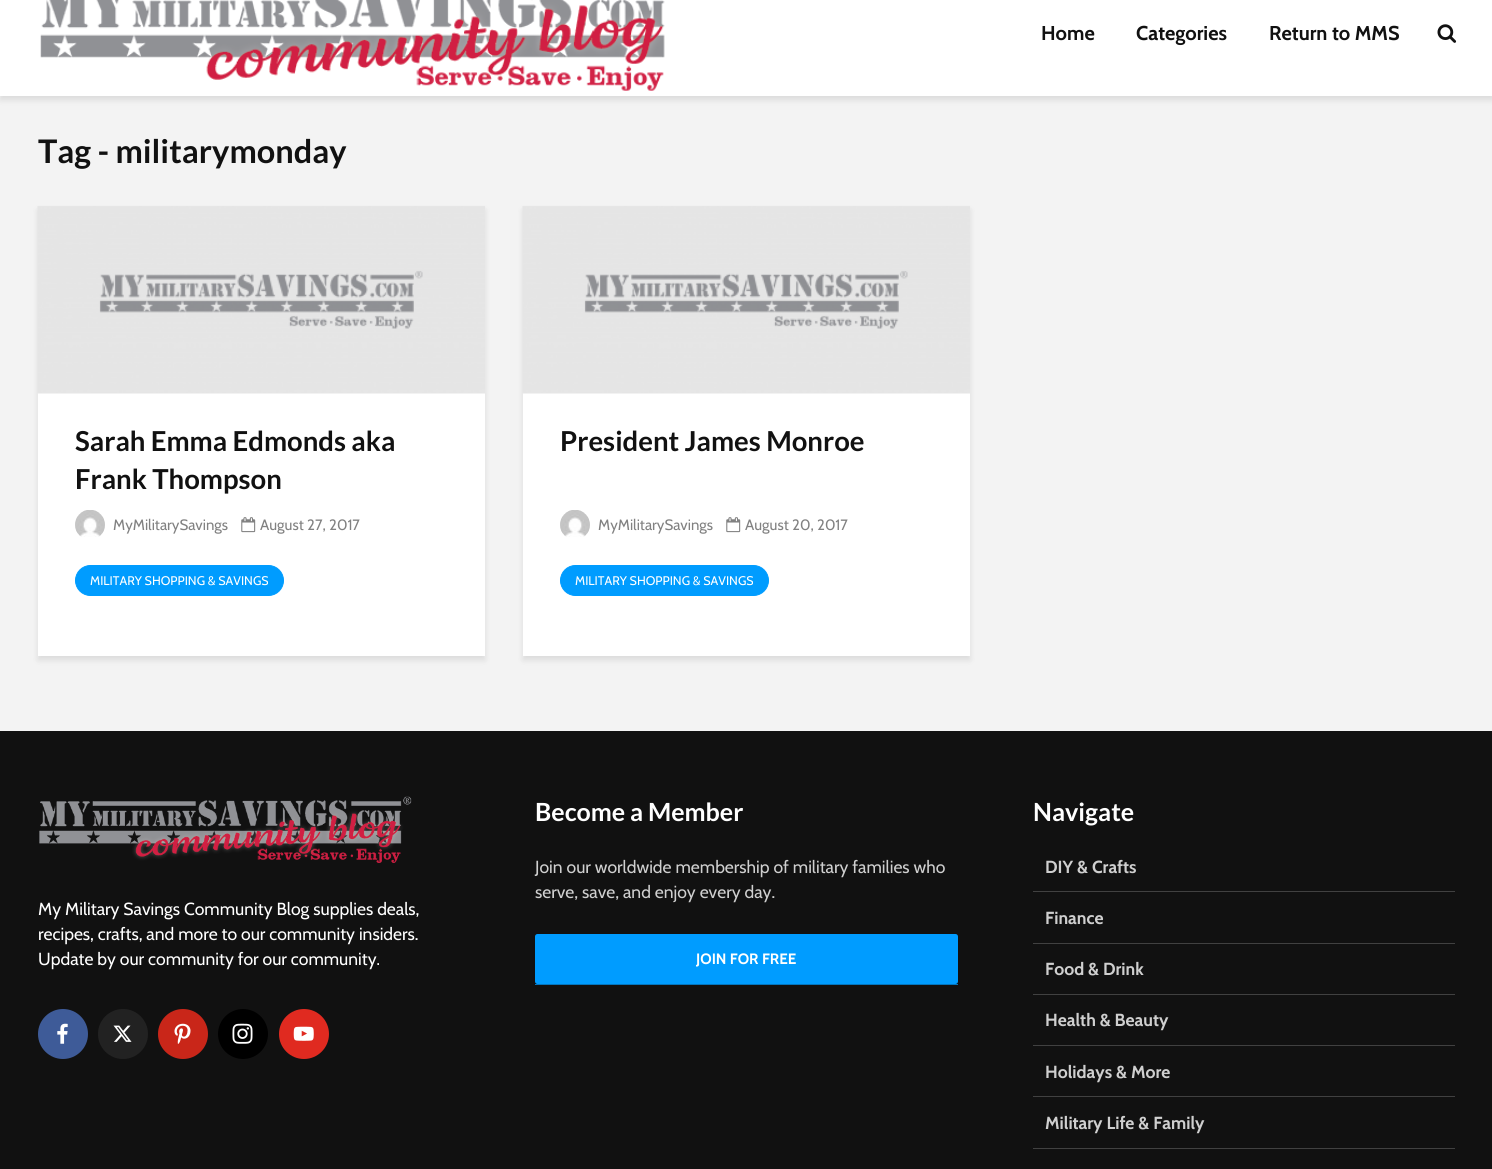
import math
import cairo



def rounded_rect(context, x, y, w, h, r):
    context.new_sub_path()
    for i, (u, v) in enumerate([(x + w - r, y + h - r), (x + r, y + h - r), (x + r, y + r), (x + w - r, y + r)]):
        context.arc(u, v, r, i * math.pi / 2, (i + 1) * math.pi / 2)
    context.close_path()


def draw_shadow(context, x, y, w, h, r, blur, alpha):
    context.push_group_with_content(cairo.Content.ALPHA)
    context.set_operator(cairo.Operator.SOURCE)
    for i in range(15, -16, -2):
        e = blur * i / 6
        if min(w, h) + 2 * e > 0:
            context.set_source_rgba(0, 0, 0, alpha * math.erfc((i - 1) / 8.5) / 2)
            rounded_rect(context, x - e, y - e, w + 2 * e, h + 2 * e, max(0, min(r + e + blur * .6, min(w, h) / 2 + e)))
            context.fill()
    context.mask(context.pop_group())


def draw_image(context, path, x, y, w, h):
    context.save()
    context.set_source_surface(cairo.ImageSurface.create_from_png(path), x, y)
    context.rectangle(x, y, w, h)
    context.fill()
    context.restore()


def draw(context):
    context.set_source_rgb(243 / 255, 243 / 255, 243 / 255)
    context.paint()
    context.set_source_rgb(0, 1 / 255, 1 / 255)
    draw_shadow(context, 0, -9, 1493, 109, 0, 3, 0.1)
    context.set_source_rgb(1, 1, 1)
    context.rectangle(0, 0, 1492, 96)
    context.fill()
    draw_image(context, "images/1.png", 40, 0, 625, 91)
    draw_image(context, "images/2.png", 1437, 24, 20, 19)
    context.set_source_rgb(0, 1 / 255, 1 / 255)
    draw_shadow(context, 38, 210, 447, 450, 0, 3, 0.1)
    context.set_source_rgb(1, 1, 1)
    context.rectangle(38, 393, 447, 263)
    context.fill()
    draw_image(context, "images/3.png", 37, 206, 448, 188)
    draw_image(context, "images/4.png", 75, 510, 30, 27)
    draw_image(context, "images/5.png", 241, 517, 15, 16)
    context.set_source_rgb(0, 156 / 255, 1)
    rounded_rect(context, 75.5, 565.5, 208, 30, 15)
    context.fill_preserve()
    context.set_line_width(1)
    context.stroke()
    context.set_source_rgb(0, 1 / 255, 1 / 255)
    draw_shadow(context, 523, 210, 447, 450, 0, 3, 0.1)
    context.set_source_rgb(1, 1, 1)
    context.rectangle(523, 393, 447, 263)
    context.fill()
    draw_image(context, "images/6.png", 522, 206, 448, 188)
    draw_image(context, "images/7.png", 560, 510, 30, 27)
    draw_image(context, "images/5.png", 726, 517, 15, 16)
    context.set_source_rgb(0, 156 / 255, 1)
    rounded_rect(context, 560.5, 565.5, 208, 30, 15)
    context.fill_preserve()
    context.stroke()
    context.set_source_rgb(17 / 255, 17 / 255, 17 / 255)
    context.rectangle(0, 731, 1492, 438)
    context.fill()
    draw_image(context, "images/8.png", 39, 796, 373, 67)
    context.set_source_rgb(62 / 255, 91 / 255, 152 / 255)
    context.arc(63, 1034, 25, 0, 2 * math.pi)
    context.fill()
    draw_image(context, "images/9.png", 57, 1023, 11, 21)
    context.set_source_rgb(34 / 255, 34 / 255, 34 / 255)
    context.arc(123, 1034, 25, 0, 2 * math.pi)
    context.fill()
    draw_image(context, "images/10.png", 113, 1025, 19, 17)
    context.set_source_rgb(201 / 255, 38 / 255, 25 / 255)
    context.arc(183, 1034, 25, 0, 2 * math.pi)
    context.fill()
    draw_image(context, "images/11.png", 174, 1023, 17, 21)
    context.set_source_rgb(0, 0, 0)
    context.arc(243, 1034, 25, 0, 2 * math.pi)
    context.fill()
    draw_image(context, "images/12.png", 232, 1023, 21, 21)
    context.set_source_rgb(224 / 255, 42 / 255, 32 / 255)
    context.arc(304, 1034, 25, 0, 2 * math.pi)
    context.fill()
    draw_image(context, "images/13.png", 293, 1026, 21, 15)
    context.set_source_rgb(3 / 255, 128 / 255, 207 / 255)
    context.rectangle(535, 984, 423, 1)
    context.fill()
    context.set_source_rgb(0, 0, 0)
    draw_shadow(context, 535, 938, 423, 50, 2.5, 3, 0.1)
    context.set_source_rgb(0, 156 / 255, 1)
    rounded_rect(context, 535, 934, 423, 50, 2.5)
    context.fill()
    context.set_source_rgb(65 / 255, 65 / 255, 65 / 255)
    context.rectangle(1033, 891, 422, 1)
    context.fill()
    context.rectangle(1033, 943, 422, 1)
    context.fill()
    context.rectangle(1033, 994, 422, 1)
    context.fill()
    context.rectangle(1033, 1045, 422, 1)
    context.fill()
    context.rectangle(1033, 1096, 422, 1)
    context.fill()
    context.rectangle(1033, 1148, 422, 1)
    context.fill()
    context.select_font_face("Cabin", cairo.FontSlant.NORMAL, cairo.FontWeight.BOLD)
    context.set_font_size(20)
    context.set_source_rgb(17 / 255, 17 / 255, 17 / 255)
    context.move_to(1041, 40)
    context.show_text("Home")
    context.move_to(1136, 40)
    context.show_text("Categories")
    context.move_to(1269, 40)
    context.show_text("Return to MMS")
    context.select_font_face("Lato", cairo.FontSlant.NORMAL, cairo.FontWeight.BOLD)
    context.set_font_size(32.5)
    context.move_to(38, 163)
    context.show_text("Tag - militarymonday")
    context.set_font_size(27.5)
    context.move_to(75, 451)
    context.show_text("Sarah Emma Edmonds aka")
    context.move_to(75, 489)
    context.show_text("Frank Thompson")
    context.select_font_face("Cabin")
    context.set_font_size(15)
    context.set_source_rgb(129 / 255, 129 / 255, 129 / 255)
    context.move_to(113, 530)
    context.show_text("MyMilitarySavings")
    context.move_to(260, 530)
    context.show_text("August 27, 2017")
    context.set_font_size(12.5)
    context.set_source_rgb(1, 1, 1)
    context.move_to(90, 585)
    context.show_text("MILITARY SHOPPING & SAVINGS")
    context.select_font_face("Lato", cairo.FontSlant.NORMAL, cairo.FontWeight.BOLD)
    context.set_font_size(27.5)
    context.set_source_rgb(17 / 255, 17 / 255, 17 / 255)
    context.move_to(560, 451)
    context.show_text("President James Monroe")
    context.select_font_face("Cabin")
    context.set_font_size(15)
    context.set_source_rgb(129 / 255, 129 / 255, 129 / 255)
    context.move_to(598, 530)
    context.show_text("MyMilitarySavings")
    context.move_to(745, 530)
    context.show_text("August 20, 2017")
    context.set_font_size(12.5)
    context.set_source_rgb(1, 1, 1)
    context.move_to(575, 585)
    context.show_text("MILITARY SHOPPING & SAVINGS")
    context.set_font_size(17.5)
    context.move_to(38, 915)
    context.show_text("My Military Savings Community Blog supplies deals,")
    context.move_to(38, 940)
    context.show_text("recipes, crafts, and more to our community insiders.")
    context.move_to(38, 965)
    context.show_text("Update by our community for our community.")
    context.select_font_face("Lato", cairo.FontSlant.NORMAL, cairo.FontWeight.BOLD)
    context.set_font_size(25)
    context.move_to(535, 821)
    context.show_text("Become a Member")
    context.select_font_face("Cabin")
    context.set_font_size(17.5)
    context.set_source_rgb(207 / 255, 207 / 255, 207 / 255)
    context.move_to(535, 873)
    context.show_text("Join our worldwide membership of military families who")
    context.move_to(535, 898)
    context.show_text("serve, save, and enjoy every day.")
    context.select_font_face("Cabin", cairo.FontSlant.NORMAL, cairo.FontWeight.BOLD)
    context.set_font_size(15)
    context.set_source_rgb(1, 1, 1)
    context.move_to(696, 964)
    context.show_text("JOIN FOR FREE")
    context.select_font_face("Lato", cairo.FontSlant.NORMAL, cairo.FontWeight.BOLD)
    context.set_font_size(25)
    context.move_to(1033, 821)
    context.show_text("Navigate")
    context.select_font_face("Cabin", cairo.FontSlant.NORMAL, cairo.FontWeight.BOLD)
    context.set_font_size(17.5)
    context.set_source_rgb(207 / 255, 207 / 255, 207 / 255)
    context.move_to(1045, 873)
    context.show_text("DIY & Crafts")
    context.move_to(1045, 924)
    context.show_text("Finance")
    context.move_to(1045, 975)
    context.show_text("Food & Drink")
    context.move_to(1045, 1026)
    context.show_text("Health & Beauty")
    context.move_to(1045, 1078)
    context.show_text("Holidays & More")
    context.move_to(1045, 1129)
    context.show_text("Military Life & Family")


surface = cairo.ImageSurface(cairo.Format.RGB24, 1492, 1169)
context = cairo.Context(surface)
options = cairo.FontOptions()
options.set_hint_metrics(cairo.HintMetrics.OFF)
options.set_hint_style(cairo.HintStyle.NONE)
context.set_font_options(options)
context.set_miter_limit(4)
draw(context)
surface.write_to_png("out.png")
